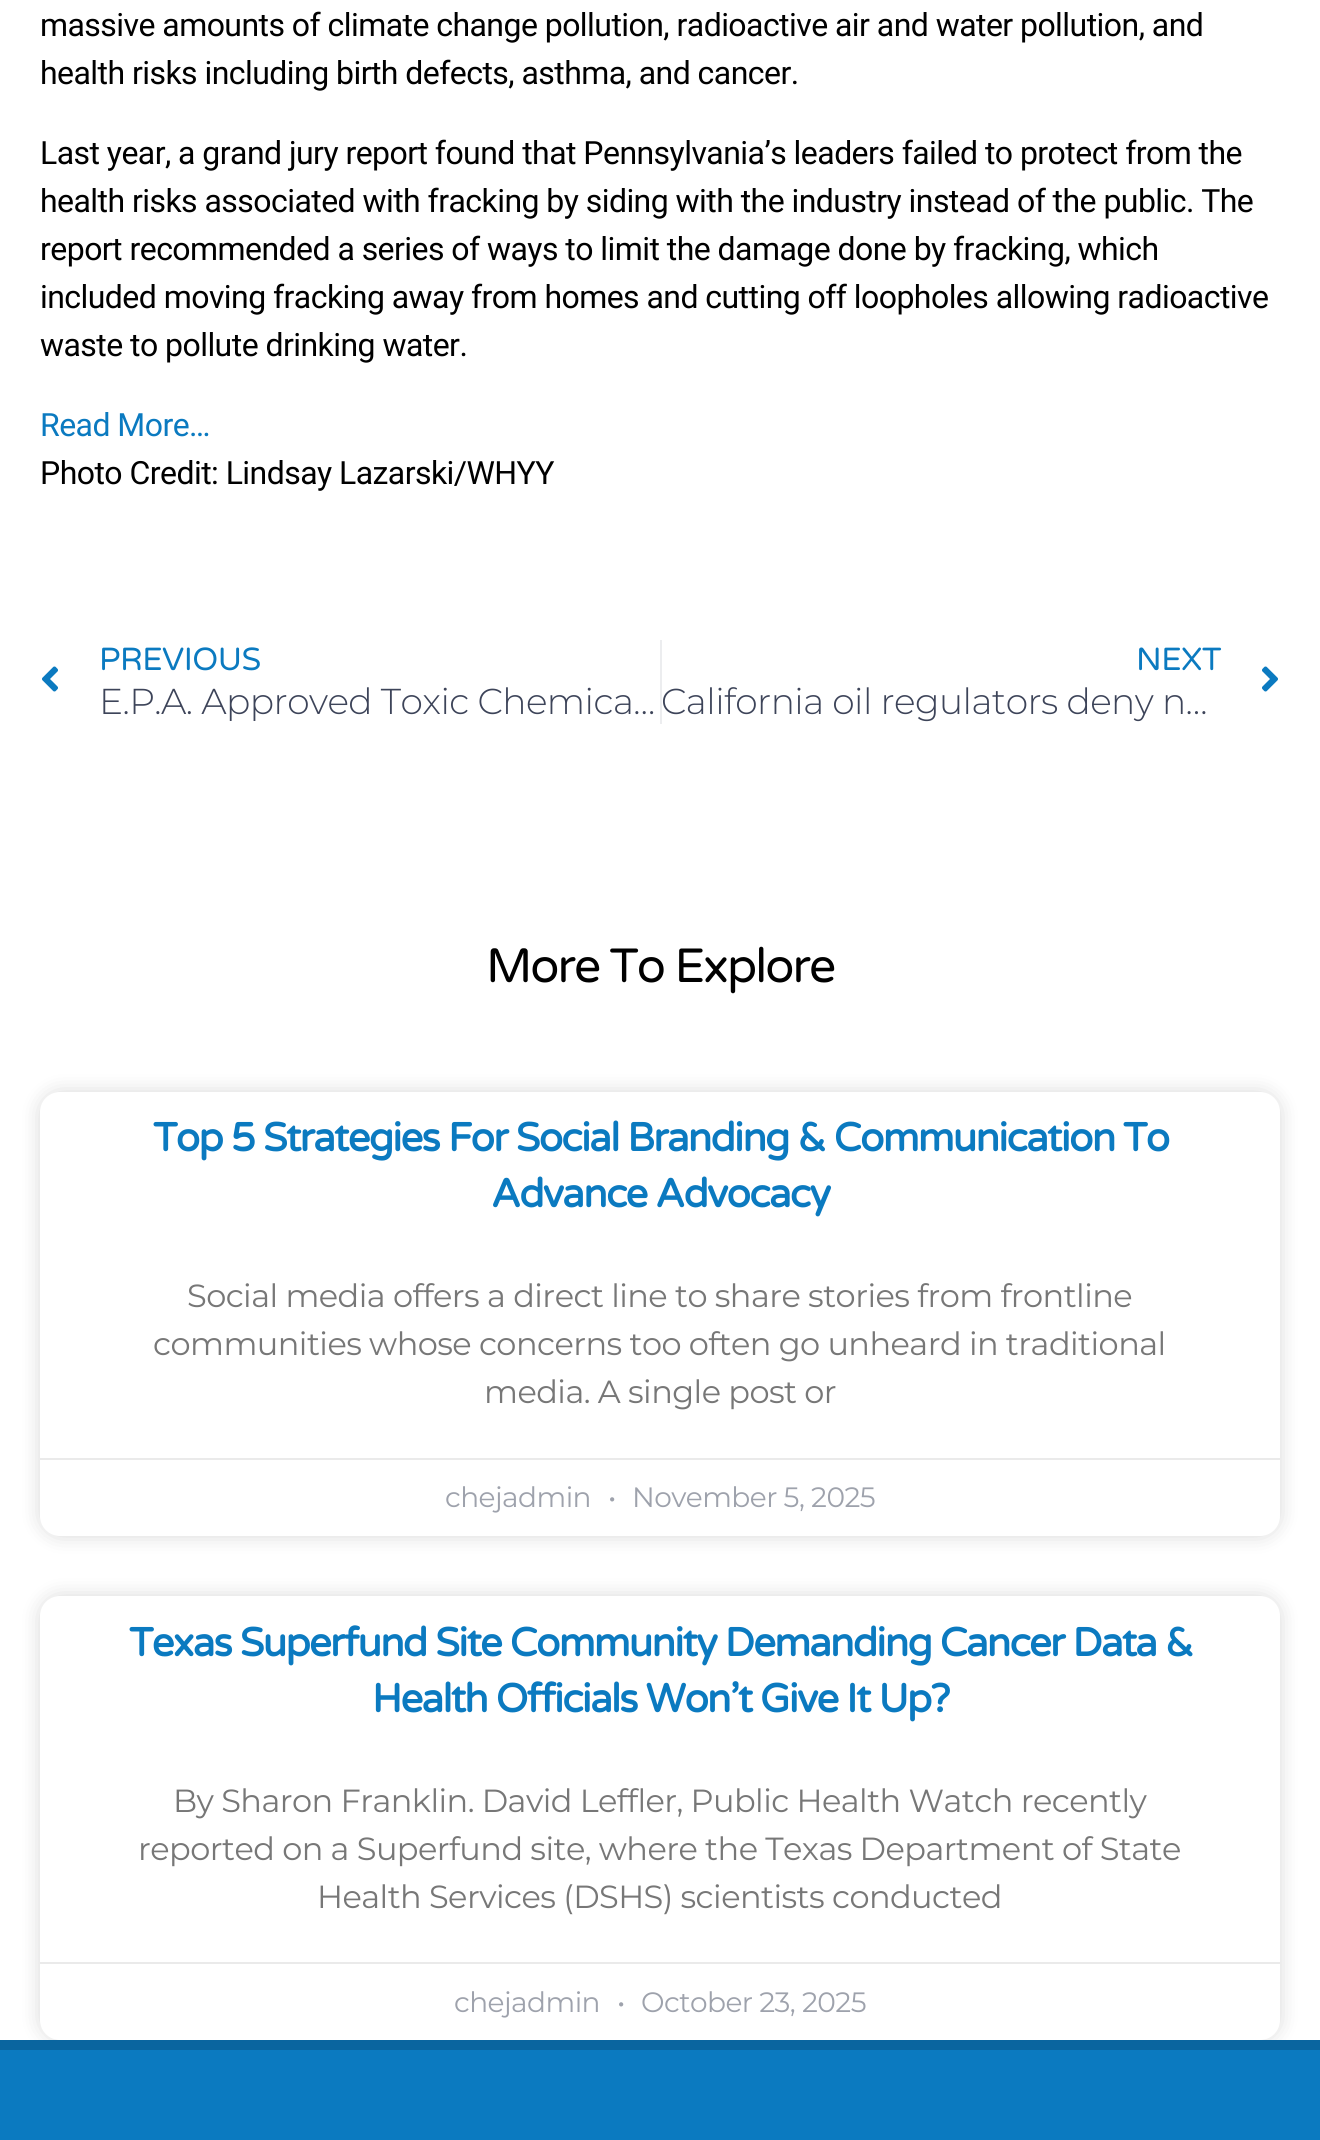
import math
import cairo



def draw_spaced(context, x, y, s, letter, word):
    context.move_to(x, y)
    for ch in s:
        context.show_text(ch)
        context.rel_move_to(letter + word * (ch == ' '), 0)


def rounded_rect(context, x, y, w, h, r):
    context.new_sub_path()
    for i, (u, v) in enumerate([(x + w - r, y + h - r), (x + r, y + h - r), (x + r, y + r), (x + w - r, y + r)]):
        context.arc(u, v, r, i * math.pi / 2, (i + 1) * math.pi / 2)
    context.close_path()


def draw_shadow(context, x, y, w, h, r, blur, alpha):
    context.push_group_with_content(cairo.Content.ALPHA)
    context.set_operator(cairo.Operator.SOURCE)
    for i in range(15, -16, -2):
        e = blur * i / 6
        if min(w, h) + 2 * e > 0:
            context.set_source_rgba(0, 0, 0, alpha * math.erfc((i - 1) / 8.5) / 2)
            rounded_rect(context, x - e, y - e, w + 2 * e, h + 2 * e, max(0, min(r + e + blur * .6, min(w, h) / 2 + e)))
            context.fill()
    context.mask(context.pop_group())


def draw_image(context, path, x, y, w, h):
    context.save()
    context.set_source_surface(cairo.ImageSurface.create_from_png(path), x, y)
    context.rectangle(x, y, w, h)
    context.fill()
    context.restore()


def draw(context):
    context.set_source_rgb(1, 1, 1)
    context.paint()
    draw_image(context, "images/1.png", 42, 666, 16, 26)
    context.set_source_rgb(236 / 255, 237 / 255, 239 / 255)
    context.rectangle(660, 640, 2, 84)
    context.fill()
    draw_image(context, "images/2.png", 1262, 666, 16, 26)
    context.set_source_rgb(0, 0, 0)
    draw_shadow(context, 40, 1092, 1240, 444, 20, 10, 0.15)
    context.set_source_rgb(1, 1, 1)
    rounded_rect(context, 40, 1092, 1240, 444, 20)
    context.fill()
    context.set_source_rgb(234 / 255, 234 / 255, 234 / 255)
    context.rectangle(40, 1458, 1240, 2)
    context.fill()
    context.set_source_rgb(0, 0, 0)
    draw_shadow(context, 40, 1596, 1240, 444, 20, 10, 0.15)
    context.set_source_rgb(1, 1, 1)
    rounded_rect(context, 40, 1596, 1240, 444, 20)
    context.fill()
    context.set_source_rgb(234 / 255, 234 / 255, 234 / 255)
    context.rectangle(40, 1962, 1240, 2)
    context.fill()
    context.set_source_rgb(11 / 255, 122 / 255, 192 / 255)
    context.rectangle(0, 2050, 1320, 90)
    context.fill()
    context.set_source_rgb(10 / 255, 101 / 255, 159 / 255)
    context.rectangle(0, 2040, 1320, 10)
    context.fill()
    context.select_font_face("Roboto")
    context.set_font_size(32)
    context.set_source_rgb(0, 0, 0)
    draw_spaced(context, 40, 36, "massive amounts of climate change pollution, radioactive air and water pollution, and", -0.55, 0)
    draw_spaced(context, 40, 84, "health risks including birth defects, asthma, and cancer.", -0.55, 0)
    draw_spaced(context, 40, 164, "Last year, a grand jury report found that Pennsylvania’s leaders failed to protect from the", -0.55, 0)
    draw_spaced(context, 40, 212, "health risks associated with fracking by siding with the industry instead of the public. The", -0.55, 0)
    draw_spaced(context, 40, 260, "report recommended a series of ways to limit the damage done by fracking, which", -0.55, 0)
    draw_spaced(context, 40, 308, "included moving fracking away from homes and cutting off loopholes allowing radioactive", -0.55, 0)
    draw_spaced(context, 40, 356, "waste to pollute drinking water.", -0.55, 0)
    context.set_source_rgb(11 / 255, 122 / 255, 192 / 255)
    draw_spaced(context, 40, 436, "Read More…", -0.55, 0)
    context.set_source_rgb(0, 0, 0)
    draw_spaced(context, 40, 484, "Photo Credit: Lindsay Lazarski/WHYY", -0.55, 0)
    context.select_font_face("Varela Round")
    context.set_source_rgb(11 / 255, 122 / 255, 192 / 255)
    draw_spaced(context, 99, 670, "PREVIOUS", -0.55, 0)
    context.select_font_face("Montserrat Light")
    context.set_font_size(36)
    context.set_source_rgb(61 / 255, 68 / 255, 89 / 255)
    draw_spaced(context, 99, 714, "E.P.A. Approved Toxic Chemica…", -0.55, 0)
    context.select_font_face("Varela Round")
    context.set_font_size(32)
    context.set_source_rgb(11 / 255, 122 / 255, 192 / 255)
    draw_spaced(context, 1136, 670, "NEXT", -0.55, 0)
    context.select_font_face("Montserrat Light")
    context.set_font_size(36)
    context.set_source_rgb(61 / 255, 68 / 255, 89 / 255)
    draw_spaced(context, 661, 714, "California oil regulators deny n…", -0.55, 0)
    context.select_font_face("Varela Round")
    context.set_font_size(48)
    context.set_source_rgb(0, 0, 0)
    draw_spaced(context, 486, 982, "More To Explore", -2, 0)
    context.select_font_face("Varela Round", cairo.FontSlant.NORMAL, cairo.FontWeight.BOLD)
    context.set_font_size(40)
    context.set_source_rgb(11 / 255, 122 / 255, 192 / 255)
    draw_spaced(context, 153, 1151, "Top 5 Strategies For Social Branding & Communication To", -1.65, 0)
    draw_spaced(context, 491, 1207, "Advance Advocacy", -1.65, 0)
    context.select_font_face("Montserrat")
    context.set_font_size(32)
    context.set_source_rgb(119 / 255, 119 / 255, 119 / 255)
    draw_spaced(context, 187, 1307, "Social media offers a direct line to share stories from frontline", -0.55, 0)
    draw_spaced(context, 153, 1355, "communities whose concerns too often go unheard in traditional", -0.55, 0)
    draw_spaced(context, 484, 1403, "media. A single post or", -0.55, 0)
    context.set_font_size(28)
    context.set_source_rgb(158 / 255, 162 / 255, 172 / 255)
    draw_spaced(context, 445, 1507, "chejadmin", -0.55, 0)
    draw_spaced(context, 608, 1507, "•", -0.55, 0)
    draw_spaced(context, 632, 1507, "November 5, 2025", -0.55, 0)
    context.select_font_face("Varela Round", cairo.FontSlant.NORMAL, cairo.FontWeight.BOLD)
    context.set_font_size(40)
    context.set_source_rgb(11 / 255, 122 / 255, 192 / 255)
    draw_spaced(context, 129, 1656, "Texas Superfund Site Community Demanding Cancer Data &", -1.65, 0)
    draw_spaced(context, 372, 1712, "Health Officials Won’t Give It Up?", -1.65, 0)
    context.select_font_face("Montserrat")
    context.set_font_size(32)
    context.set_source_rgb(119 / 255, 119 / 255, 119 / 255)
    draw_spaced(context, 173, 1812, "By Sharon Franklin. David Leffler, Public Health Watch recently", -0.55, 0)
    draw_spaced(context, 138, 1860, "reported on a Superfund site, where the Texas Department of State", -0.55, 0)
    draw_spaced(context, 317, 1908, "Health Services (DSHS) scientists conducted", -0.55, 0)
    context.set_font_size(28)
    context.set_source_rgb(158 / 255, 162 / 255, 172 / 255)
    draw_spaced(context, 454, 2012, "chejadmin", -0.55, 0)
    draw_spaced(context, 617, 2012, "•", -0.55, 0)
    draw_spaced(context, 641, 2012, "October 23, 2025", -0.55, 0)


surface = cairo.ImageSurface(cairo.Format.RGB24, 1320, 2140)
context = cairo.Context(surface)
options = cairo.FontOptions()
options.set_hint_metrics(cairo.HintMetrics.OFF)
options.set_hint_style(cairo.HintStyle.NONE)
context.set_font_options(options)
context.set_miter_limit(4)
draw(context)
surface.write_to_png("out.png")
